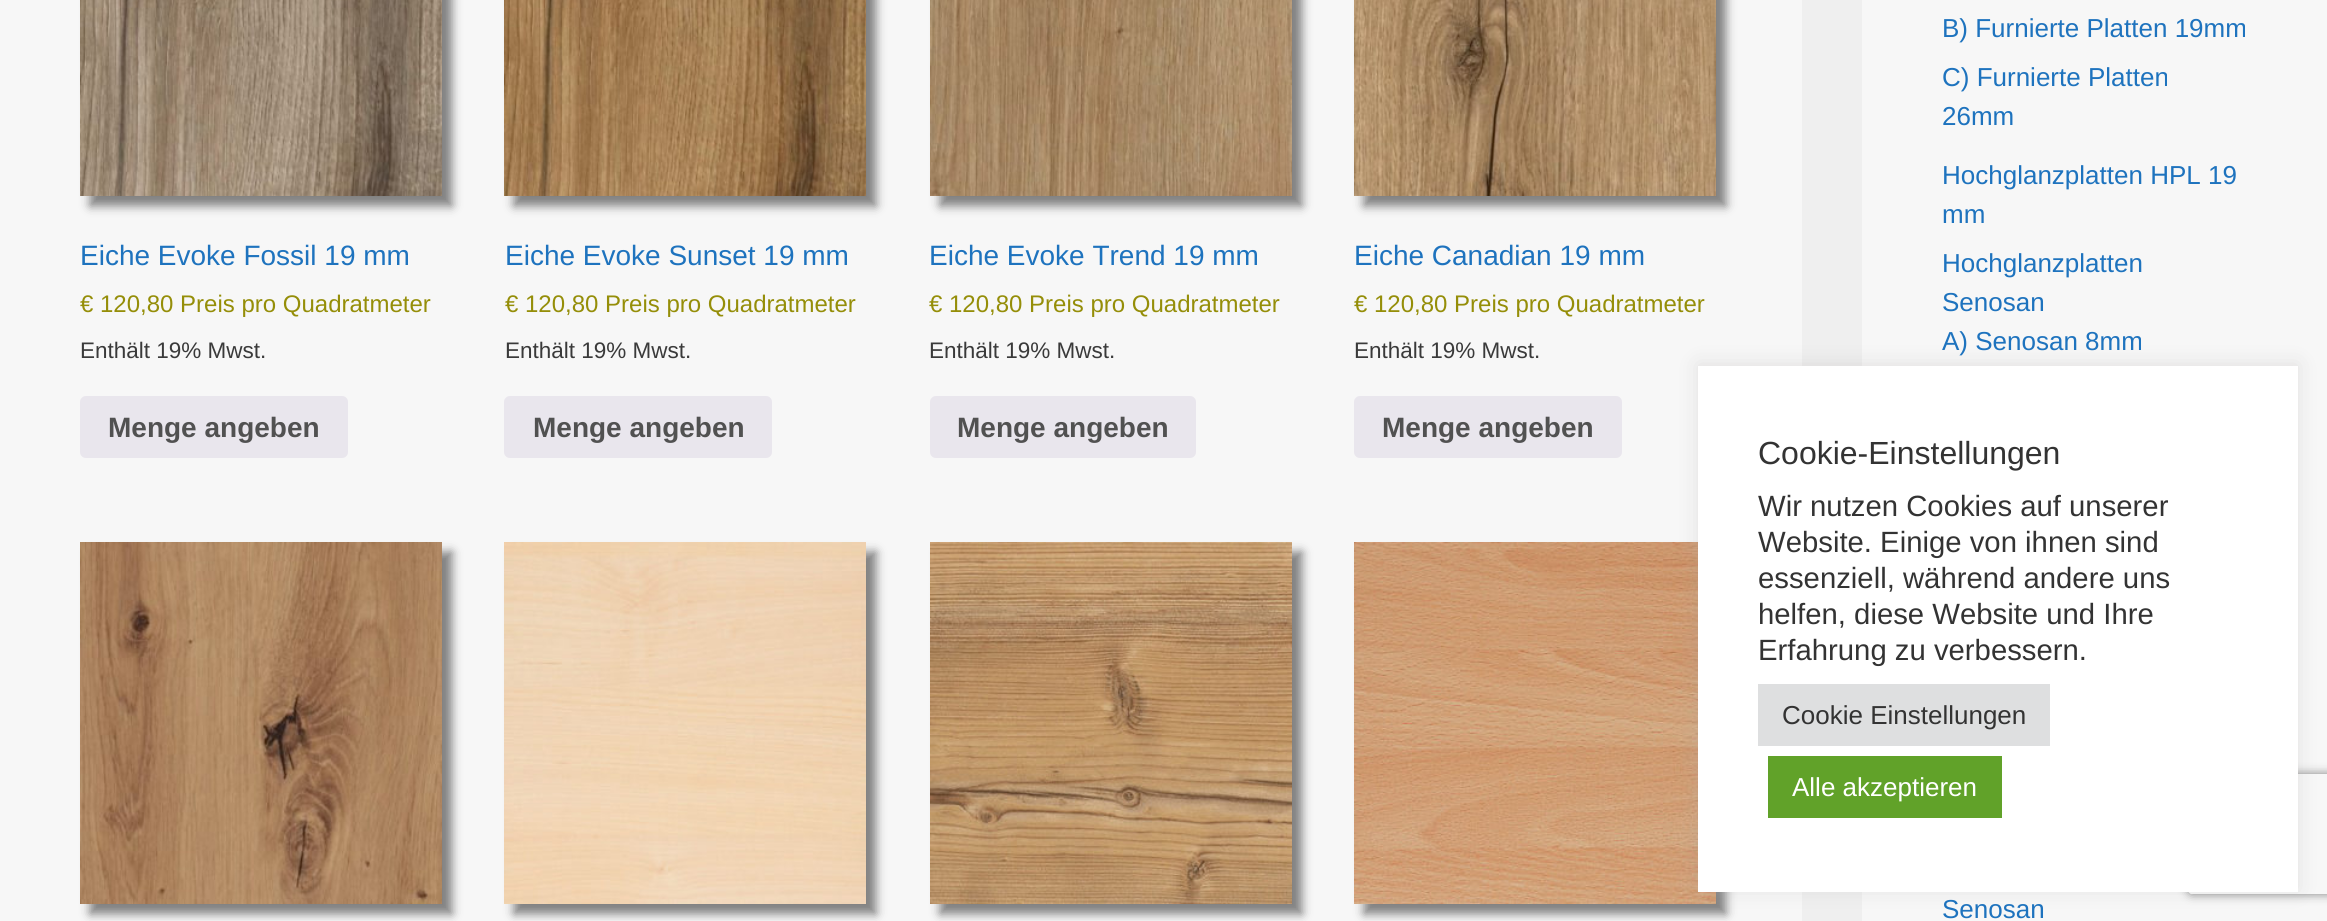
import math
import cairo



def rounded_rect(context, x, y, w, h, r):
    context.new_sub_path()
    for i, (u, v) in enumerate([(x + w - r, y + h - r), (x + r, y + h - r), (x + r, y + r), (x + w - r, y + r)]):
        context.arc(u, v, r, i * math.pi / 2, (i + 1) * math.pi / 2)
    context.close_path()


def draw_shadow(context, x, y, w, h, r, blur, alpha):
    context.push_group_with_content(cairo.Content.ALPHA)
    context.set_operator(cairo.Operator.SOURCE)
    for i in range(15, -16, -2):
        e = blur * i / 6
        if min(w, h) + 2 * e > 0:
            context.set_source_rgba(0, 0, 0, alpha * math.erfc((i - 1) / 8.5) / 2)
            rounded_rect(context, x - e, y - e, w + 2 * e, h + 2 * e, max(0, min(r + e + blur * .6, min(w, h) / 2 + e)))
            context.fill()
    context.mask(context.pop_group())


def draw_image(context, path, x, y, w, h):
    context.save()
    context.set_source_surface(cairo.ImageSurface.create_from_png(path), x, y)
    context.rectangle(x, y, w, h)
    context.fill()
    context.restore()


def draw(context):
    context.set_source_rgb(239 / 255, 239 / 255, 239 / 255)
    context.paint()
    context.set_source_rgb(247 / 255, 247 / 255, 247 / 255)
    context.rectangle(0, 0, 1802, 921)
    context.fill()
    context.set_source_rgb(128 / 255, 128 / 255, 128 / 255)
    draw_shadow(context, 90, -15, 362, 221, 0, 5, 1)
    draw_image(context, "images/1.png", 80, 0, 362, 196)
    context.set_source_rgb(233 / 255, 230 / 255, 237 / 255)
    rounded_rect(context, 80, 396, 268, 62, 6)
    context.fill()
    context.set_source_rgb(128 / 255, 128 / 255, 128 / 255)
    draw_shadow(context, 514, -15, 362, 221, 0, 5, 1)
    draw_image(context, "images/2.png", 504, 0, 362, 196)
    context.set_source_rgb(233 / 255, 230 / 255, 237 / 255)
    rounded_rect(context, 504, 396, 268, 62, 6)
    context.fill()
    context.set_source_rgb(128 / 255, 128 / 255, 128 / 255)
    draw_shadow(context, 940, -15, 362, 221, 0, 5, 1)
    draw_image(context, "images/3.png", 930, 0, 362, 196)
    context.set_source_rgb(233 / 255, 230 / 255, 237 / 255)
    rounded_rect(context, 930, 396, 266, 62, 6)
    context.fill()
    context.set_source_rgb(128 / 255, 128 / 255, 128 / 255)
    draw_shadow(context, 1364, -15, 362, 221, 0, 5, 1)
    draw_image(context, "images/4.png", 1354, 0, 362, 196)
    context.set_source_rgb(233 / 255, 230 / 255, 237 / 255)
    rounded_rect(context, 1354, 396, 268, 62, 6)
    context.fill()
    context.set_source_rgb(128 / 255, 128 / 255, 128 / 255)
    draw_shadow(context, 90, 552, 362, 362, 0, 5, 1)
    draw_image(context, "images/5.png", 80, 542, 362, 362)
    draw_shadow(context, 514, 552, 362, 362, 0, 5, 1)
    draw_image(context, "images/6.png", 504, 542, 362, 362)
    draw_shadow(context, 940, 552, 362, 362, 0, 5, 1)
    draw_image(context, "images/7.png", 930, 542, 362, 362)
    draw_shadow(context, 1364, 552, 362, 362, 0, 5, 1)
    draw_image(context, "images/8.png", 1354, 542, 362, 362)
    context.set_source_rgb(247 / 255, 247 / 255, 247 / 255)
    context.rectangle(1862, 0, 465, 921)
    context.fill()
    context.set_source_rgb(172 / 255, 171 / 255, 171 / 255)
    draw_shadow(context, 1698, 364, 600, 526, 0, 10, 0.3)
    context.save()
    context.set_fill_rule(cairo.FillRule.EVEN_ODD)
    context.new_path()
    context.move_to(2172, 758)
    context.line_to(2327, 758)
    context.line_to(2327, 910)
    context.line_to(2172, 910)
    context.close_path()
    context.move_to(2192, 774)
    context.line_to(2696, 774)
    context.curve_to(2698, 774, 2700, 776, 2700, 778)
    context.line_to(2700, 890)
    context.curve_to(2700, 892, 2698, 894, 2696, 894)
    context.line_to(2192, 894)
    context.curve_to(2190, 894, 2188, 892, 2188, 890)
    context.line_to(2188, 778)
    context.curve_to(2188, 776, 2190, 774, 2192, 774)
    context.close_path()
    context.clip()
    context.set_source_rgb(128 / 255, 128 / 255, 128 / 255)
    draw_shadow(context, 2188, 774, 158, 120, 4, 5, 1)
    context.restore()
    context.set_source_rgb(1, 1, 1)
    context.rectangle(1698, 366, 600, 526)
    context.fill()
    context.set_source_rgb(222 / 255, 223 / 255, 224 / 255)
    context.rectangle(1758, 684, 292, 62)
    context.fill()
    context.set_source_rgb(97 / 255, 162 / 255, 41 / 255)
    context.rectangle(1768, 756, 234, 62)
    context.fill()
    context.select_font_face("Liberation Sans")
    context.set_font_size(28)
    context.set_source_rgb(30 / 255, 115 / 255, 190 / 255)
    context.move_to(80, 265)
    context.show_text("Eiche Evoke Fossil 19 mm")
    context.set_font_size(24)
    context.set_source_rgb(149 / 255, 142 / 255, 9 / 255)
    context.move_to(80, 312)
    context.show_text("€ 120,80 Preis pro Quadratmeter")
    context.set_font_size(22.5)
    context.set_source_rgb(58 / 255, 58 / 255, 58 / 255)
    context.move_to(80, 358)
    context.show_text("Enthält 19% Mwst.")
    context.select_font_face("Liberation Sans", cairo.FontSlant.NORMAL, cairo.FontWeight.BOLD)
    context.set_font_size(28)
    context.set_source_rgb(81 / 255, 81 / 255, 81 / 255)
    context.move_to(108, 437)
    context.show_text("Menge angeben")
    context.select_font_face("Liberation Sans")
    context.set_source_rgb(30 / 255, 115 / 255, 190 / 255)
    context.move_to(505, 265)
    context.show_text("Eiche Evoke Sunset 19 mm")
    context.set_font_size(24)
    context.set_source_rgb(149 / 255, 142 / 255, 9 / 255)
    context.move_to(505, 312)
    context.show_text("€ 120,80 Preis pro Quadratmeter")
    context.set_font_size(22.5)
    context.set_source_rgb(58 / 255, 58 / 255, 58 / 255)
    context.move_to(505, 358)
    context.show_text("Enthält 19% Mwst.")
    context.select_font_face("Liberation Sans", cairo.FontSlant.NORMAL, cairo.FontWeight.BOLD)
    context.set_font_size(28)
    context.set_source_rgb(81 / 255, 81 / 255, 81 / 255)
    context.move_to(533, 437)
    context.show_text("Menge angeben")
    context.select_font_face("Liberation Sans")
    context.set_source_rgb(30 / 255, 115 / 255, 190 / 255)
    context.move_to(929, 265)
    context.show_text("Eiche Evoke Trend 19 mm")
    context.set_font_size(24)
    context.set_source_rgb(149 / 255, 142 / 255, 9 / 255)
    context.move_to(929, 312)
    context.show_text("€ 120,80 Preis pro Quadratmeter")
    context.set_font_size(22.5)
    context.set_source_rgb(58 / 255, 58 / 255, 58 / 255)
    context.move_to(929, 358)
    context.show_text("Enthält 19% Mwst.")
    context.select_font_face("Liberation Sans", cairo.FontSlant.NORMAL, cairo.FontWeight.BOLD)
    context.set_font_size(28)
    context.set_source_rgb(81 / 255, 81 / 255, 81 / 255)
    context.move_to(957, 437)
    context.show_text("Menge angeben")
    context.select_font_face("Liberation Sans")
    context.set_source_rgb(30 / 255, 115 / 255, 190 / 255)
    context.move_to(1354, 265)
    context.show_text("Eiche Canadian 19 mm")
    context.set_font_size(24)
    context.set_source_rgb(149 / 255, 142 / 255, 9 / 255)
    context.move_to(1354, 312)
    context.show_text("€ 120,80 Preis pro Quadratmeter")
    context.set_font_size(22.5)
    context.set_source_rgb(58 / 255, 58 / 255, 58 / 255)
    context.move_to(1354, 358)
    context.show_text("Enthält 19% Mwst.")
    context.select_font_face("Liberation Sans", cairo.FontSlant.NORMAL, cairo.FontWeight.BOLD)
    context.set_font_size(28)
    context.set_source_rgb(81 / 255, 81 / 255, 81 / 255)
    context.move_to(1382, 437)
    context.show_text("Menge angeben")
    context.select_font_face("Liberation Sans")
    context.set_font_size(26)
    context.set_source_rgb(30 / 255, 115 / 255, 190 / 255)
    context.move_to(1942, 37)
    context.show_text("B) Furnierte Platten 19mm")
    context.move_to(1942, 86)
    context.show_text("C) Furnierte Platten")
    context.move_to(1942, 125)
    context.show_text("26mm")
    context.move_to(1942, 184)
    context.show_text("Hochglanzplatten HPL 19")
    context.move_to(1942, 223)
    context.show_text("mm")
    context.move_to(1942, 272)
    context.show_text("Hochglanzplatten")
    context.move_to(1942, 311)
    context.show_text("Senosan")
    context.move_to(1942, 350)
    context.show_text("A) Senosan 8mm")
    context.move_to(1942, 918)
    context.show_text("Senosan")
    context.set_font_size(32)
    context.set_source_rgb(51 / 255, 51 / 255, 51 / 255)
    context.move_to(1758, 464)
    context.show_text("Cookie-Einstellungen")
    context.set_font_size(29.3)
    context.move_to(1758, 516)
    context.show_text("Wir nutzen Cookies auf unserer")
    context.move_to(1758, 552)
    context.show_text("Website. Einige von ihnen sind")
    context.move_to(1758, 588)
    context.show_text("essenziell, während andere uns")
    context.move_to(1758, 624)
    context.show_text("helfen, diese Website und Ihre")
    context.move_to(1758, 660)
    context.show_text("Erfahrung zu verbessern.")
    context.set_font_size(26)
    context.move_to(1782, 724)
    context.show_text("Cookie Einstellungen")
    context.set_source_rgb(1, 1, 1)
    context.move_to(1792, 796)
    context.show_text("Alle akzeptieren")


surface = cairo.ImageSurface(cairo.Format.RGB24, 2327, 921)
context = cairo.Context(surface)
options = cairo.FontOptions()
options.set_hint_metrics(cairo.HintMetrics.OFF)
options.set_hint_style(cairo.HintStyle.NONE)
context.set_font_options(options)
context.set_miter_limit(4)
draw(context)
surface.write_to_png("out.png")
